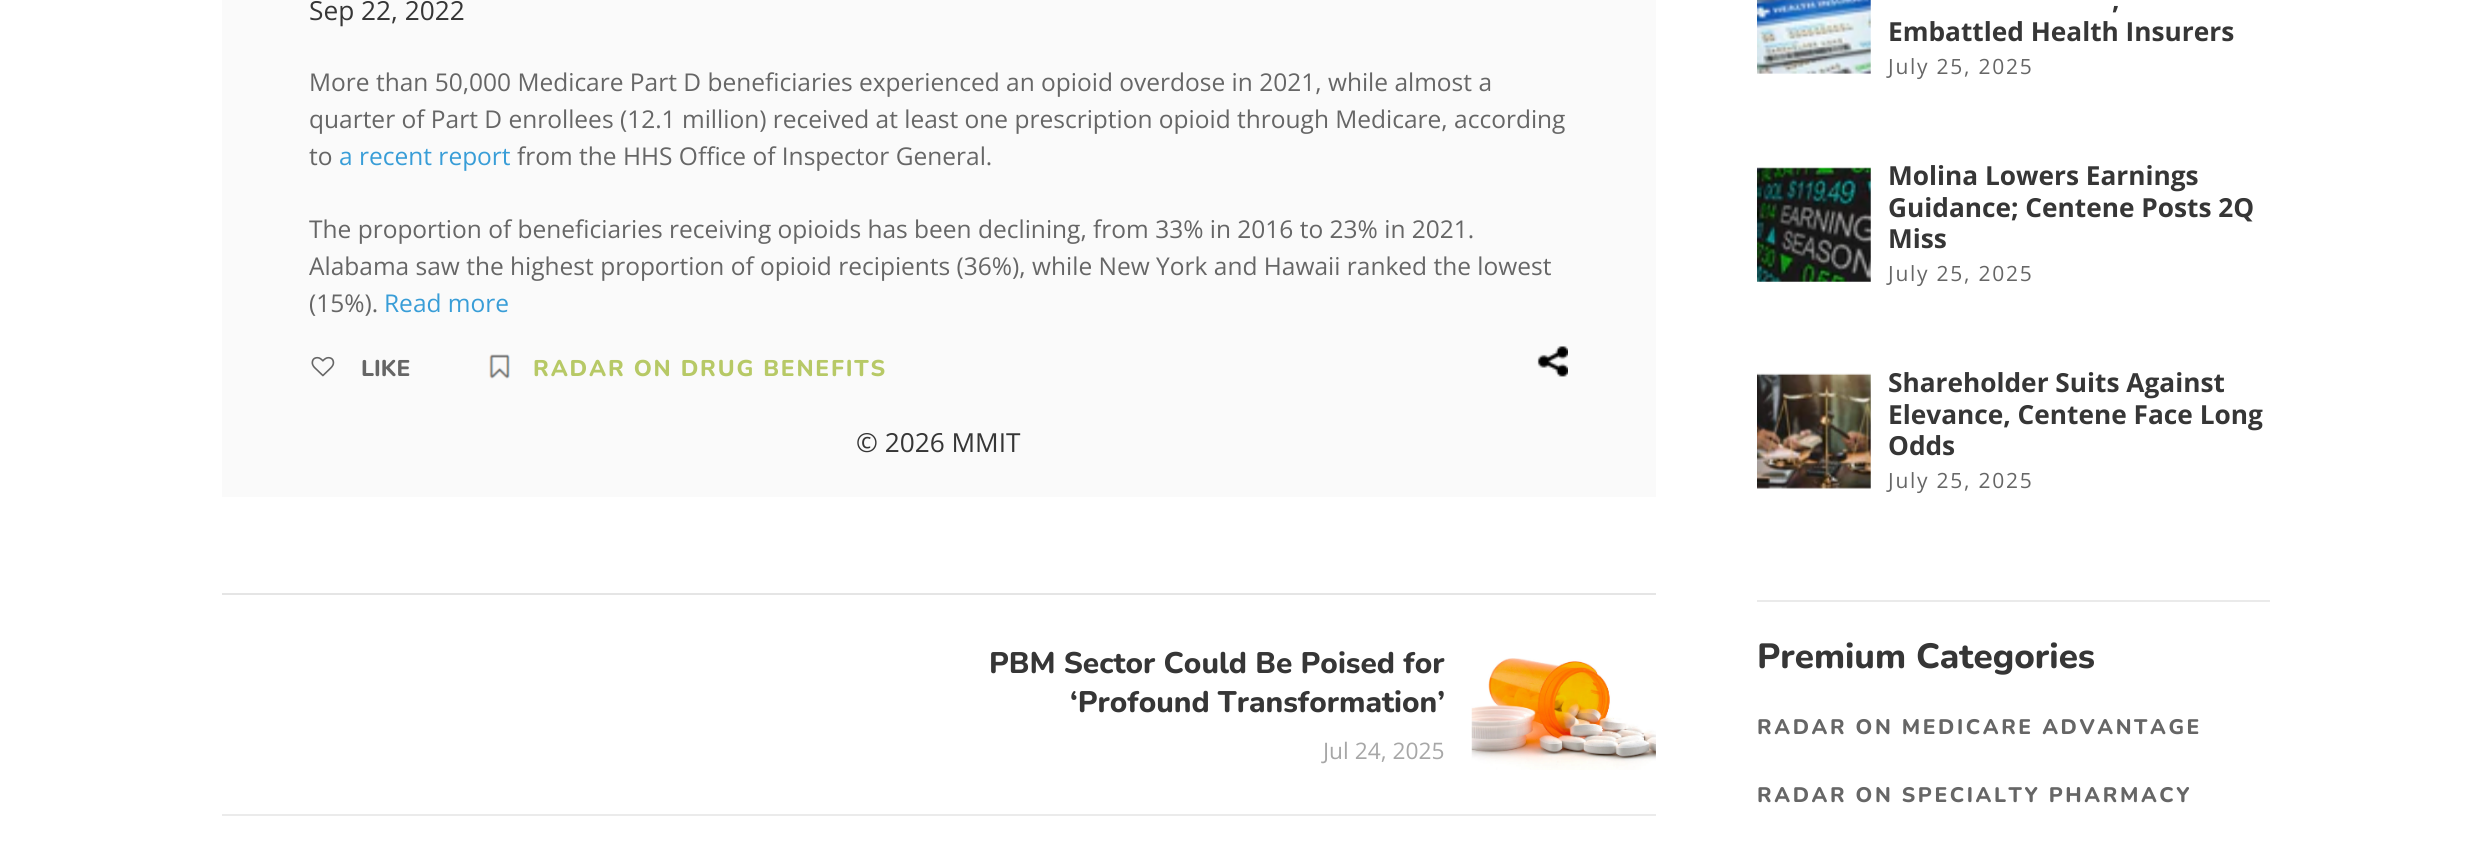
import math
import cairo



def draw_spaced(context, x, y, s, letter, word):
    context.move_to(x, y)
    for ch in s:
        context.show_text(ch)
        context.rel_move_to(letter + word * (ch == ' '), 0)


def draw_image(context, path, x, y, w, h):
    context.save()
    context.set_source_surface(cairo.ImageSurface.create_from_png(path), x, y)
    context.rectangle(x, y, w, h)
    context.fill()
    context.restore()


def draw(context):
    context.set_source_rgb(1, 1, 1)
    context.paint()
    context.set_source_rgb(250 / 255, 250 / 255, 250 / 255)
    context.rectangle(222, 0, 1434, 497)
    context.fill()
    draw_image(context, "images/1.png", 311, 356, 24, 21)
    draw_image(context, "images/2.png", 489, 354, 21, 25)
    draw_image(context, "images/3.png", 1537, 346, 31, 31)
    context.set_source_rgb(229 / 255, 229 / 255, 229 / 255)
    context.rectangle(222, 593, 1434, 2)
    context.fill()
    draw_image(context, "images/4.png", 1471, 658, 185, 112)
    context.set_source_rgb(235 / 255, 235 / 255, 235 / 255)
    context.rectangle(222, 814, 1434, 2)
    context.fill()
    draw_image(context, "images/5.png", 1757, 0, 114, 74)
    draw_image(context, "images/6.png", 1757, 167, 114, 115)
    draw_image(context, "images/7.png", 1757, 373, 114, 116)
    context.set_source_rgb(234 / 255, 234 / 255, 234 / 255)
    context.rectangle(1757, 600, 513, 2)
    context.fill()
    context.select_font_face("Open Sans")
    context.set_font_size(26.25)
    context.set_source_rgb(54 / 255, 54 / 255, 54 / 255)
    context.move_to(309, 20)
    context.show_text("Sep 22, 2022")
    context.set_font_size(24.5)
    context.set_source_rgb(102 / 255, 102 / 255, 102 / 255)
    context.move_to(309, 91)
    context.show_text("More than 50,000 Medicare Part D beneficiaries experienced an opioid overdose in 2021, while almost a")
    context.move_to(309, 128)
    context.show_text("quarter of Part D enrollees (12.1 million) received at least one prescription opioid through Medicare, according")
    context.move_to(309, 165)
    context.show_text("to")
    context.set_source_rgb(56 / 255, 157 / 255, 215 / 255)
    context.move_to(339, 165)
    context.show_text("a recent report")
    context.set_source_rgb(102 / 255, 102 / 255, 102 / 255)
    context.move_to(517, 165)
    context.show_text("from the HHS Office of Inspector General.")
    context.move_to(309, 238)
    context.show_text("The proportion of beneficiaries receiving opioids has been declining, from 33% in 2016 to 23% in 2021.")
    context.move_to(309, 275)
    context.show_text("Alabama saw the highest proportion of opioid recipients (36%), while New York and Hawaii ranked the lowest")
    context.move_to(309, 312)
    context.show_text("(15%).")
    context.set_source_rgb(56 / 255, 157 / 255, 215 / 255)
    context.move_to(384, 312)
    context.show_text("Read more")
    context.select_font_face("Nunito ExtraBold")
    context.set_font_size(22.75)
    context.set_source_rgb(102 / 255, 102 / 255, 102 / 255)
    context.move_to(361, 376)
    context.show_text("LIKE")
    context.set_source_rgb(183 / 255, 201 / 255, 102 / 255)
    draw_spaced(context, 533, 376, "RADAR ON DRUG BENEFITS", 1.8, 0)
    context.select_font_face("Open Sans")
    context.set_font_size(26.25)
    context.set_source_rgb(54 / 255, 54 / 255, 54 / 255)
    context.move_to(856, 452)
    context.show_text("© 2026 MMIT")
    context.select_font_face("Nunito ExtraBold")
    context.set_font_size(29.75)
    context.move_to(989, 673)
    context.show_text("PBM Sector Could Be Poised for")
    context.move_to(1070, 712)
    context.show_text("‘Profound Transformation’")
    context.select_font_face("Open Sans")
    context.set_font_size(22.75)
    context.set_source_rgb(167 / 255, 167 / 255, 167 / 255)
    context.move_to(1323, 759)
    context.show_text("Jul 24, 2025")
    context.select_font_face("Open Sans", cairo.FontSlant.NORMAL, cairo.FontWeight.BOLD)
    context.set_font_size(26.25)
    context.set_source_rgb(54 / 255, 54 / 255, 54 / 255)
    context.move_to(2112, 9)
    context.show_text(",")
    context.move_to(1888, 41)
    context.show_text("Embattled Health Insurers")
    context.select_font_face("Open Sans")
    context.set_font_size(21)
    context.set_source_rgb(102 / 255, 102 / 255, 102 / 255)
    draw_spaced(context, 1888, 74, "July 25, 2025", 1.75, 0)
    context.select_font_face("Open Sans", cairo.FontSlant.NORMAL, cairo.FontWeight.BOLD)
    context.set_font_size(26.25)
    context.set_source_rgb(54 / 255, 54 / 255, 54 / 255)
    context.move_to(1888, 185)
    context.show_text("Molina Lowers Earnings")
    context.move_to(1888, 217)
    context.show_text("Guidance; Centene Posts 2Q")
    context.move_to(1888, 248)
    context.show_text("Miss")
    context.select_font_face("Open Sans")
    context.set_font_size(21)
    context.set_source_rgb(102 / 255, 102 / 255, 102 / 255)
    draw_spaced(context, 1888, 281, "July 25, 2025", 1.75, 0)
    context.select_font_face("Open Sans", cairo.FontSlant.NORMAL, cairo.FontWeight.BOLD)
    context.set_font_size(26.25)
    context.set_source_rgb(54 / 255, 54 / 255, 54 / 255)
    context.move_to(1888, 392)
    context.show_text("Shareholder Suits Against")
    context.move_to(1888, 424)
    context.show_text("Elevance, Centene Face Long")
    context.move_to(1888, 455)
    context.show_text("Odds")
    context.select_font_face("Open Sans")
    context.set_font_size(21)
    context.set_source_rgb(102 / 255, 102 / 255, 102 / 255)
    draw_spaced(context, 1888, 488, "July 25, 2025", 1.75, 0)
    context.select_font_face("Nunito ExtraBold")
    context.set_font_size(35)
    context.set_source_rgb(54 / 255, 54 / 255, 54 / 255)
    context.move_to(1757, 668)
    context.show_text("Premium Categories")
    context.set_font_size(21)
    context.set_source_rgb(102 / 255, 102 / 255, 102 / 255)
    draw_spaced(context, 1757, 734, "RADAR ON MEDICARE ADVANTAGE", 2.6, 0)
    draw_spaced(context, 1757, 802, "RADAR ON SPECIALTY PHARMACY", 2.6, 0)


surface = cairo.ImageSurface(cairo.Format.RGB24, 2490, 851)
context = cairo.Context(surface)
options = cairo.FontOptions()
options.set_hint_metrics(cairo.HintMetrics.OFF)
options.set_hint_style(cairo.HintStyle.NONE)
context.set_font_options(options)
context.set_miter_limit(4)
draw(context)
surface.write_to_png("out.png")
